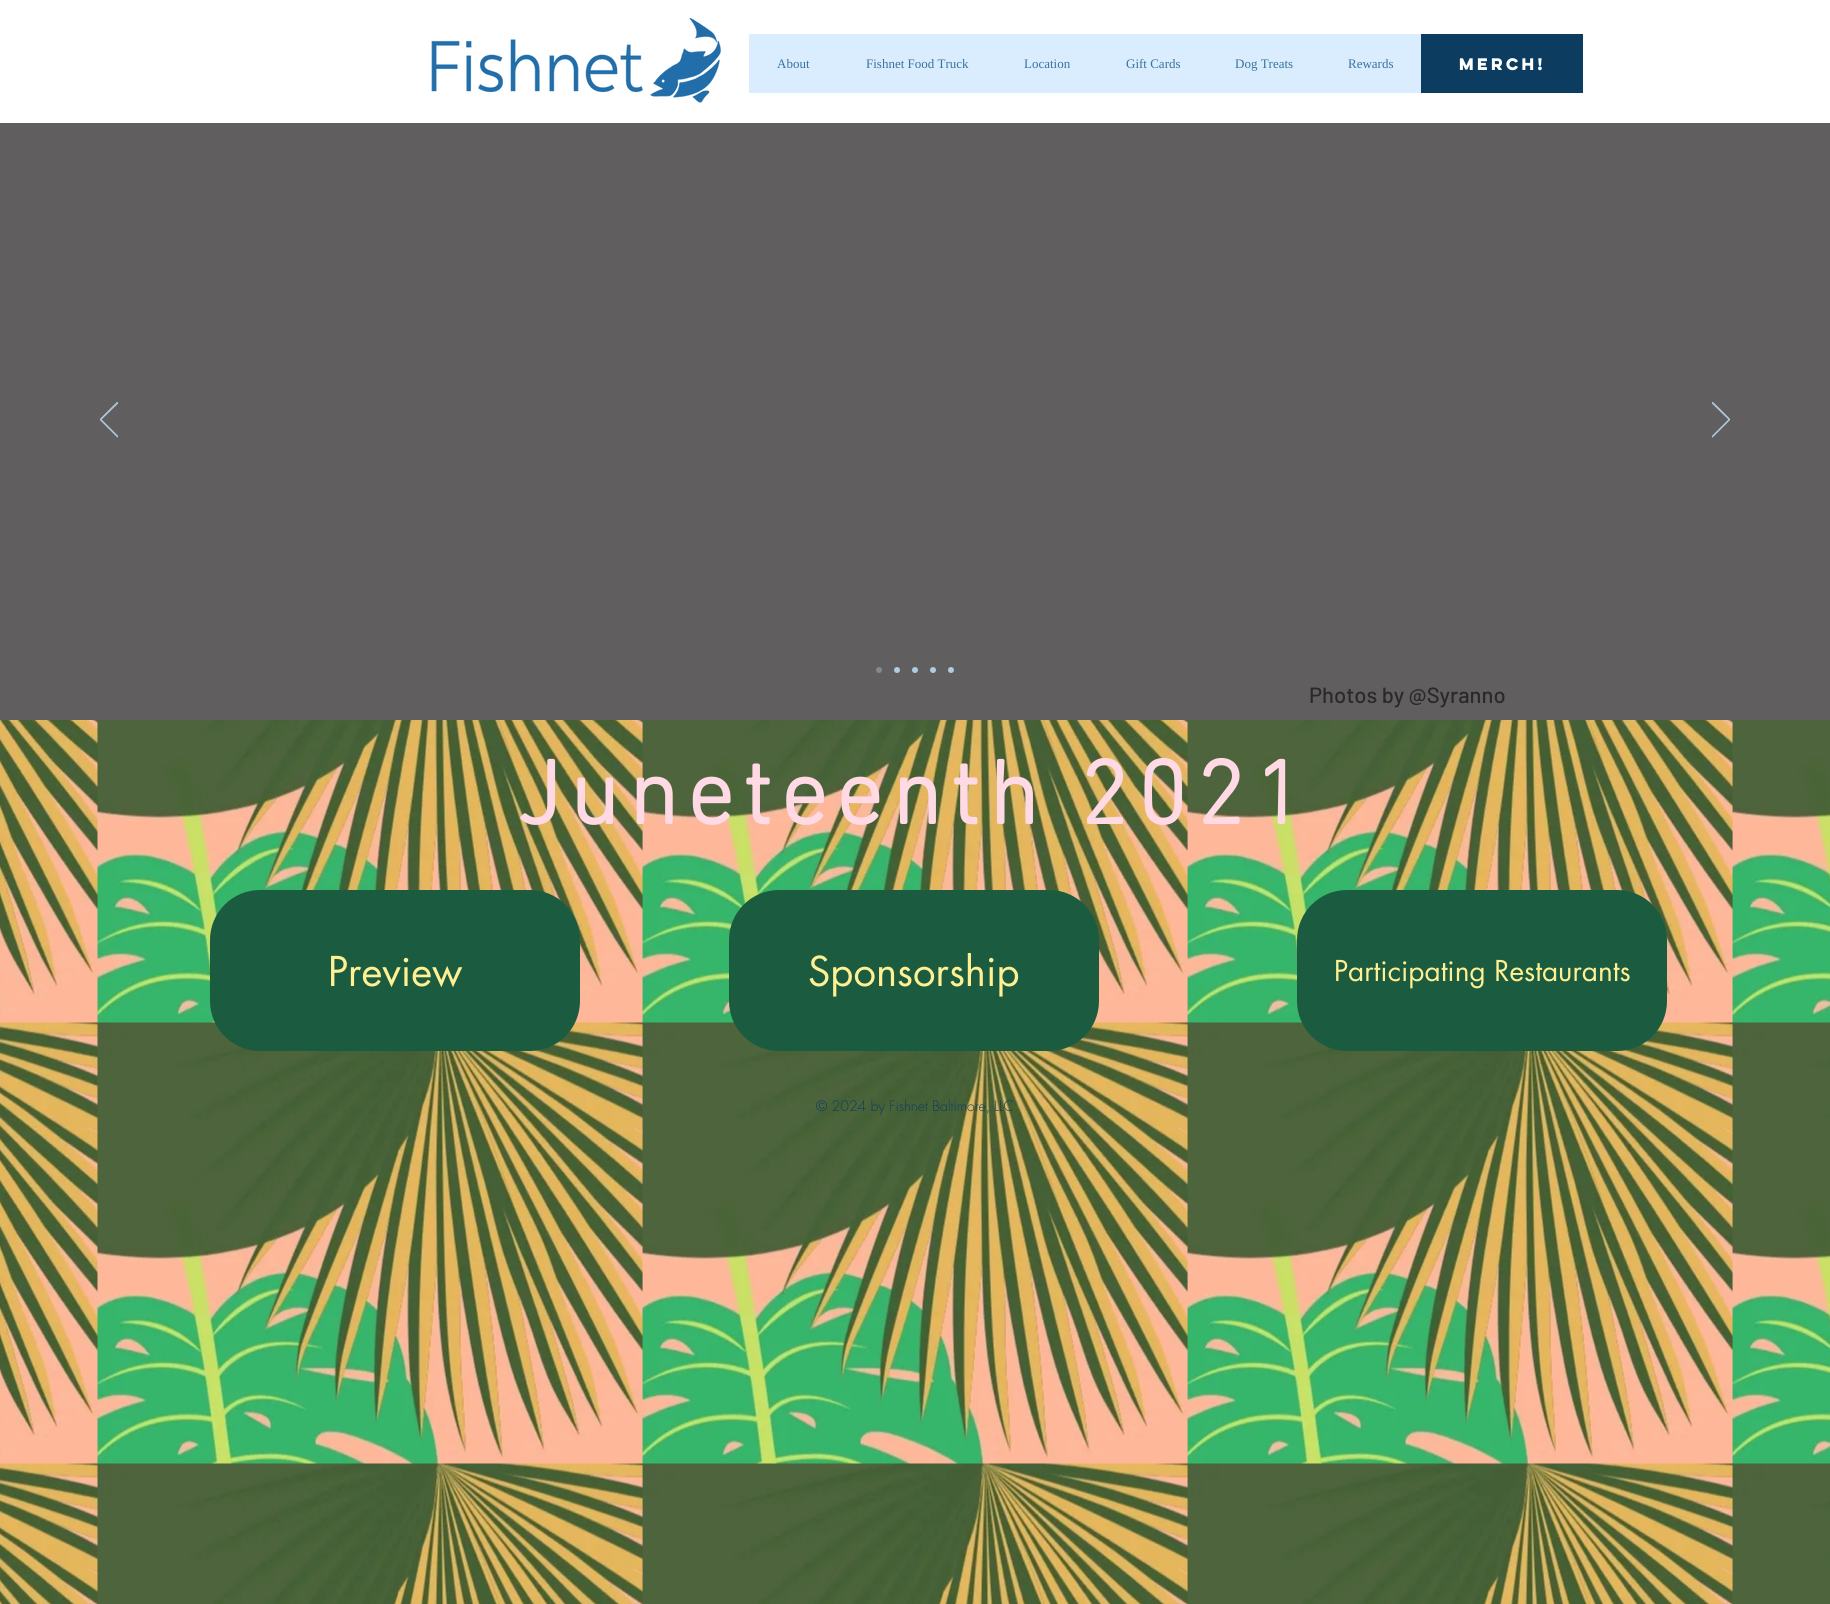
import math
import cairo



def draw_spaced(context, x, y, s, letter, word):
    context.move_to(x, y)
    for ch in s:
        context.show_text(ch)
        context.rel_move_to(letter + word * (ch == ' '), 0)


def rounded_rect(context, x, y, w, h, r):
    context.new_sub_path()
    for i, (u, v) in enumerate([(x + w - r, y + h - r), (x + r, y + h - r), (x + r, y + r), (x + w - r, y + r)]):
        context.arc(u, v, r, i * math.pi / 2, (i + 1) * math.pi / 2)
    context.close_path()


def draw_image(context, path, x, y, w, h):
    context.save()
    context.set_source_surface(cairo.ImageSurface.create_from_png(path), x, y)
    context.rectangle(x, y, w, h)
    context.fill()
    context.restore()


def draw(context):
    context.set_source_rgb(1, 1, 1)
    context.paint()
    draw_image(context, "images/1.png", 431, 18, 290, 85)
    context.set_source_rgb(218 / 255, 237 / 255, 1)
    context.rectangle(749, 34, 672, 59)
    context.fill()
    context.set_source_rgb(12 / 255, 60 / 255, 96 / 255)
    context.rectangle(1421, 34, 162, 59)
    context.fill()
    context.set_source_rgb(96 / 255, 94 / 255, 94 / 255)
    context.rectangle(0, 123, 1830, 597)
    context.fill()
    context.save()
    context.rectangle(100, 402, 18, 36)
    context.clip()
    context.new_path()
    context.move_to(117.5, 437)
    context.line_to(100, 419.5)
    context.line_to(117.5, 402)
    context.line_to(118, 403)
    context.line_to(101, 419.5)
    context.line_to(118, 436.5)
    context.close_path()
    context.set_source_rgb(175 / 255, 203 / 255, 224 / 255)
    context.set_line_width(0.9)
    context.stroke()
    context.restore()
    context.save()
    context.rectangle(1712, 402, 18, 36)
    context.clip()
    context.new_path()
    context.move_to(1712.5, 437)
    context.line_to(1730, 419.5)
    context.line_to(1712.5, 402)
    context.line_to(1712, 403)
    context.line_to(1729, 419.5)
    context.line_to(1712, 436.5)
    context.close_path()
    context.set_source_rgb(175 / 255, 203 / 255, 224 / 255)
    context.set_line_width(0.9)
    context.stroke()
    context.restore()
    context.set_source_rgb(133 / 255, 137 / 255, 142 / 255)
    context.arc(879, 670, 3, 0, 2 * math.pi)
    context.fill()
    context.set_source_rgb(175 / 255, 203 / 255, 224 / 255)
    context.arc(897, 670, 3, 0, 2 * math.pi)
    context.fill()
    context.arc(915, 670, 3, 0, 2 * math.pi)
    context.fill()
    context.arc(933, 670, 3, 0, 2 * math.pi)
    context.fill()
    context.arc(951, 670, 3, 0, 2 * math.pi)
    context.fill()
    draw_image(context, "images/2.png", 0, 720, 1830, 884)
    context.set_source_rgb(27 / 255, 91 / 255, 63 / 255)
    rounded_rect(context, 210, 890, 370, 161, 50)
    context.fill()
    rounded_rect(context, 729, 890, 370, 161, 50)
    context.fill()
    rounded_rect(context, 1297, 890, 370, 161, 50)
    context.fill()
    context.select_font_face("Liberation Serif")
    context.set_font_size(13)
    context.set_source_rgb(57 / 255, 114 / 255, 155 / 255)
    context.move_to(777, 68)
    context.show_text("About")
    context.move_to(866, 68)
    context.show_text("Fishnet Food Truck")
    context.move_to(1024, 68)
    context.show_text("Location")
    context.move_to(1126, 68)
    context.show_text("Gift Cards")
    context.move_to(1235, 68)
    context.show_text("Dog Treats")
    context.move_to(1348, 68)
    context.show_text("Rewards")
    context.select_font_face("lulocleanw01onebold", cairo.FontSlant.NORMAL, cairo.FontWeight.BOLD)
    context.set_font_size(15)
    context.set_source_rgb(1, 1, 1)
    context.move_to(1459, 70)
    context.show_text("Merch!")
    context.select_font_face("Barlow Medium")
    context.set_font_size(22)
    context.set_source_rgb(41 / 255, 41 / 255, 41 / 255)
    context.move_to(1309, 703)
    context.show_text("Photos by @Syranno")
    context.select_font_face("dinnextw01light", cairo.FontSlant.NORMAL, cairo.FontWeight.BOLD)
    context.set_font_size(92)
    context.set_source_rgb(1, 217 / 255, 228 / 255)
    draw_spaced(context, 517, 824, "Juneteenth 2021", 9.25, 0)
    context.select_font_face("futura")
    context.set_font_size(40)
    context.set_source_rgb(1, 240 / 255, 148 / 255)
    context.move_to(328, 986)
    context.show_text("Preview")
    context.move_to(808, 986)
    context.show_text("Sponsorship")
    context.set_font_size(28)
    context.move_to(1334, 981)
    context.show_text("Participating Restaurants")
    context.select_font_face("futura Light")
    context.set_font_size(14)
    context.set_source_rgb(12 / 255, 60 / 255, 96 / 255)
    context.move_to(816, 1111)
    context.show_text("© 2024 by Fishnet Baltimore, LLC")


surface = cairo.ImageSurface(cairo.Format.RGB24, 1830, 1604)
context = cairo.Context(surface)
options = cairo.FontOptions()
options.set_hint_metrics(cairo.HintMetrics.OFF)
options.set_hint_style(cairo.HintStyle.NONE)
context.set_font_options(options)
context.set_miter_limit(4)
draw(context)
surface.write_to_png("out.png")
